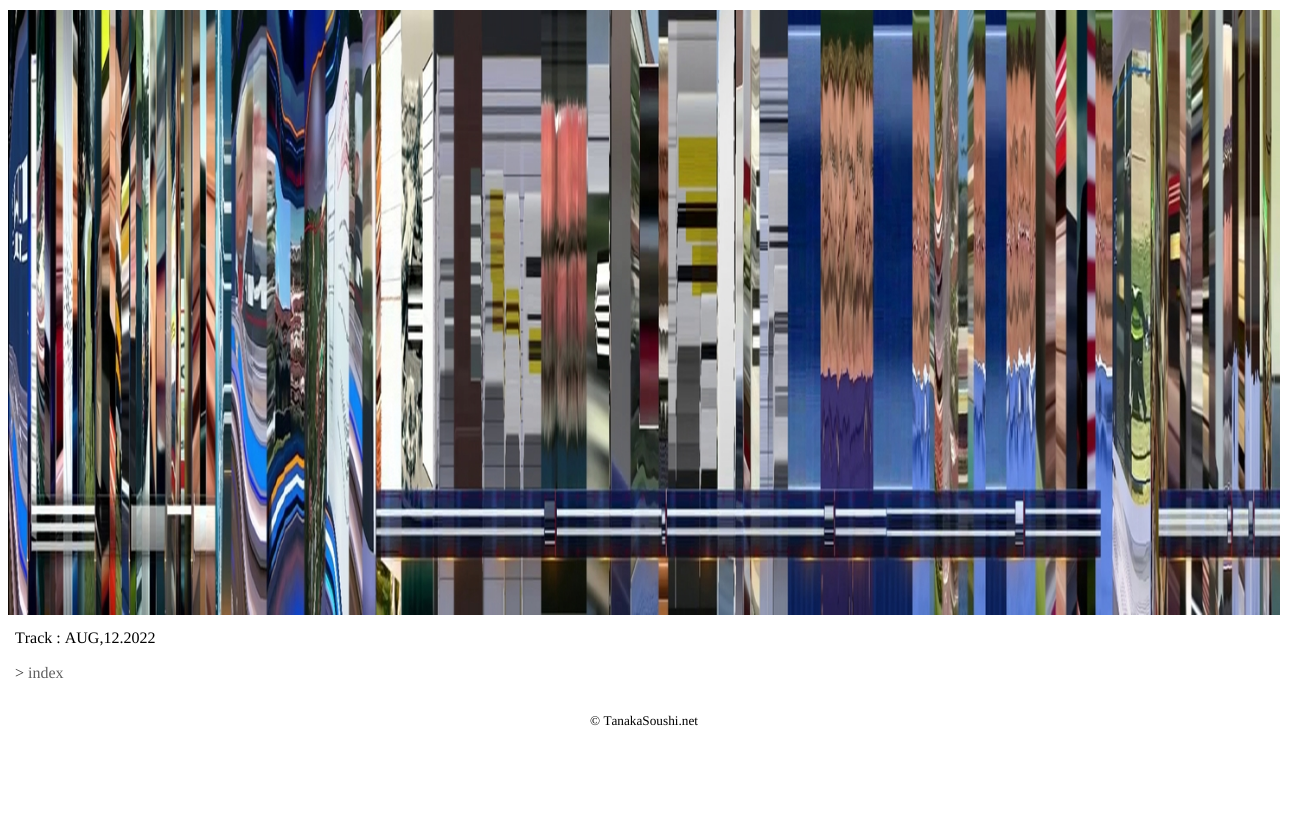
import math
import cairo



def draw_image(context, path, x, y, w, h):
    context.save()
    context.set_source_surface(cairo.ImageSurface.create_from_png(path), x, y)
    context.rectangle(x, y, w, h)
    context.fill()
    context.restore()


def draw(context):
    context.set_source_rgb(1, 1, 1)
    context.paint()
    draw_image(context, "images/1.png", 8, 10, 1272, 605)
    context.select_font_face("Liberation Serif")
    context.set_font_size(16)
    context.set_source_rgb(0, 0, 0)
    context.move_to(15, 643)
    context.show_text("Track : AUG,12.2022")
    context.set_source_rgb(51 / 255, 51 / 255, 51 / 255)
    context.move_to(15, 678)
    context.show_text(">")
    context.set_source_rgb(95 / 255, 95 / 255, 95 / 255)
    context.move_to(28, 678)
    context.show_text("index")
    context.set_font_size(13.25)
    context.set_source_rgb(0, 0, 0)
    context.move_to(590, 725)
    context.show_text("© TanakaSoushi.net")


surface = cairo.ImageSurface(cairo.Format.RGB24, 1289, 823)
context = cairo.Context(surface)
options = cairo.FontOptions()
options.set_hint_metrics(cairo.HintMetrics.OFF)
options.set_hint_style(cairo.HintStyle.NONE)
context.set_font_options(options)
context.set_miter_limit(4)
draw(context)
surface.write_to_png("out.png")
